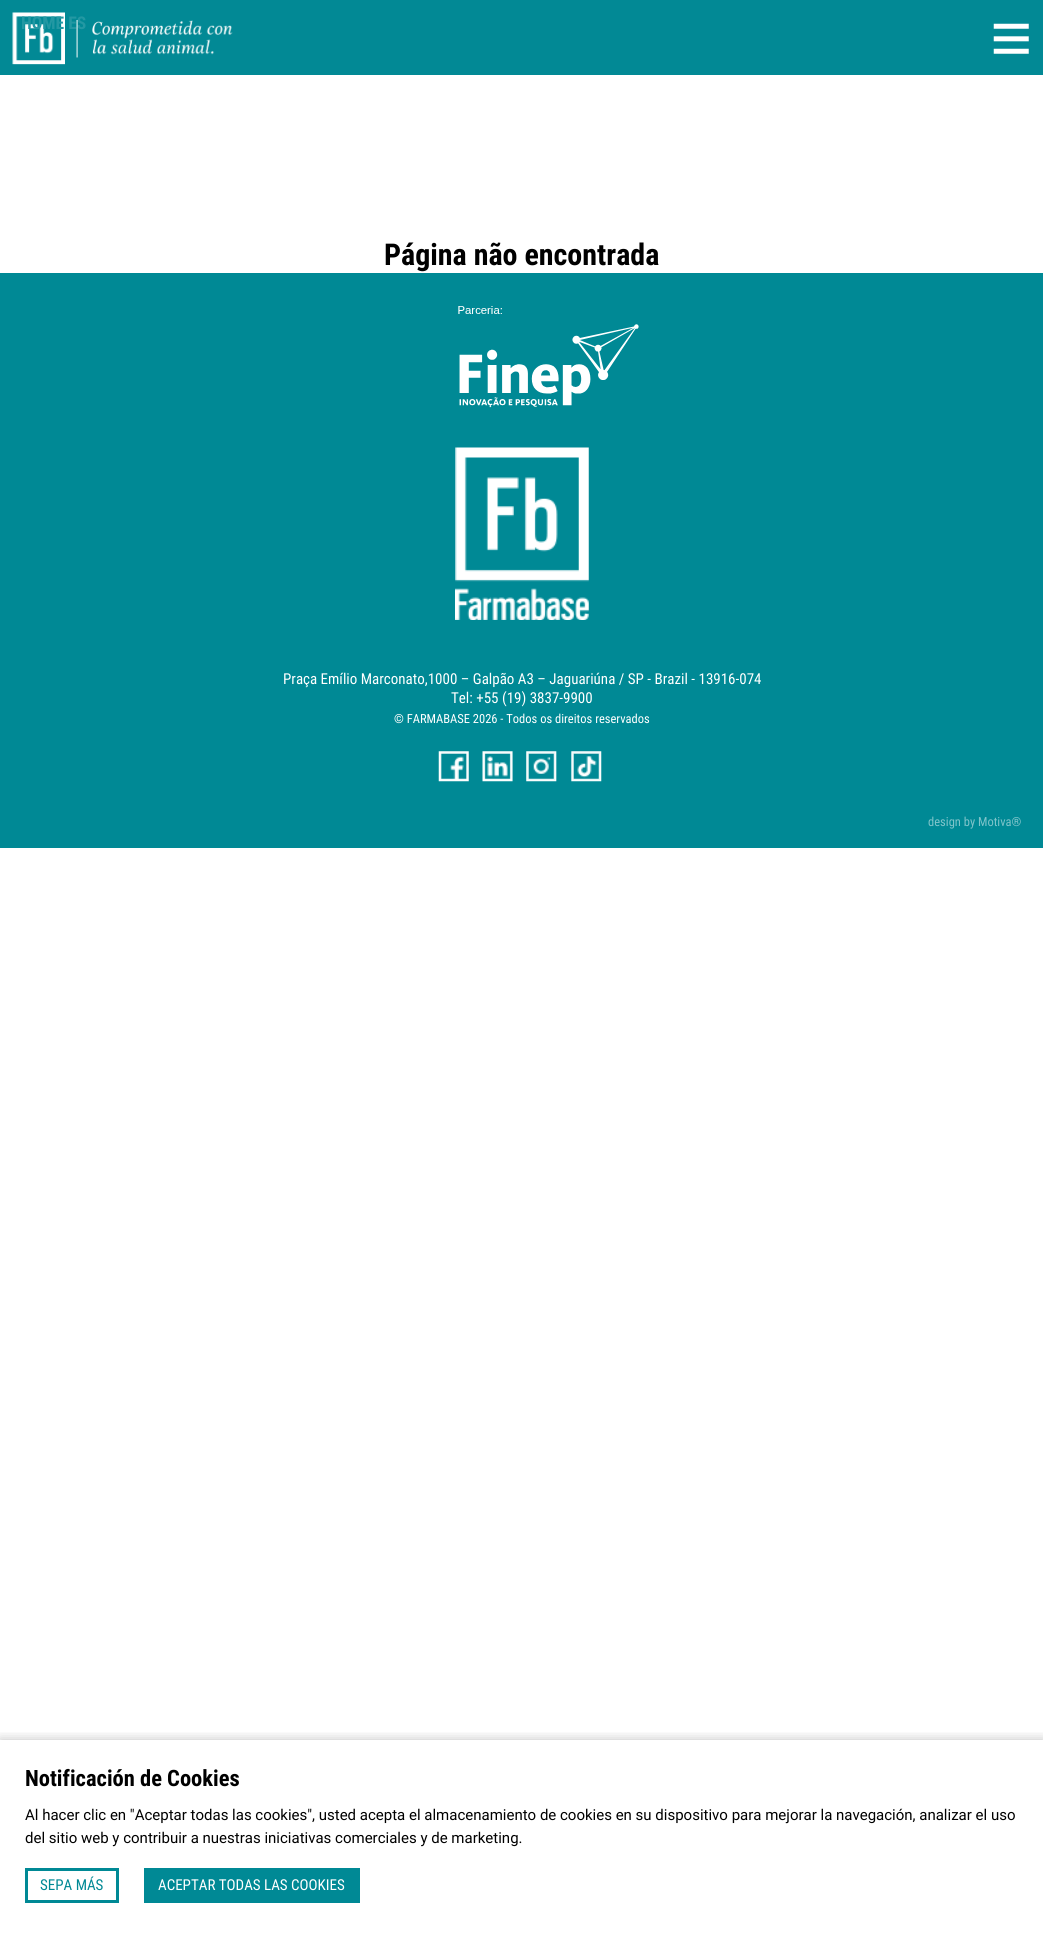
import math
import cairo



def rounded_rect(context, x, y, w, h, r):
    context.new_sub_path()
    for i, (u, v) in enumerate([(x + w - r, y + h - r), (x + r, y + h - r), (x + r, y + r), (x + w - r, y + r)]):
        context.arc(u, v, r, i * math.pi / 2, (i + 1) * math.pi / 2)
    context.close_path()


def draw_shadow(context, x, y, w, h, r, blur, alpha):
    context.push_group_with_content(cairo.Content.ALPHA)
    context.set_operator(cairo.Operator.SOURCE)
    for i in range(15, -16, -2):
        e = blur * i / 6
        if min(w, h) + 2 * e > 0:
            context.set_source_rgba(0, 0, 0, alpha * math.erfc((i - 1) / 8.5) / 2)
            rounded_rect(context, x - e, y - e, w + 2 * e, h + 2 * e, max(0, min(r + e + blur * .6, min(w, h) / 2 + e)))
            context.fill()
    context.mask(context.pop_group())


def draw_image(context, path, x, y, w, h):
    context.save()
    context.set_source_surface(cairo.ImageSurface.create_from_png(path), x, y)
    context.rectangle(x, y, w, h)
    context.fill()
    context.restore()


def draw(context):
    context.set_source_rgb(1, 1, 1)
    context.paint()
    context.set_source_rgb(2 / 255, 137 / 255, 149 / 255)
    context.rectangle(0, 0, 1043, 75)
    context.fill()
    draw_image(context, "images/1.png", 12, 12, 53, 53)
    draw_image(context, "images/3.png", 993, 23, 36, 31)
    context.set_source_rgb(0, 137 / 255, 149 / 255)
    context.rectangle(0, 273, 1043, 575)
    context.fill()
    draw_image(context, "images/4.png", 458, 306, 181, 102)
    draw_image(context, "images/5.png", 455, 447, 134, 173)
    draw_image(context, "images/6.png", 438, 751, 31, 31)
    draw_image(context, "images/7.png", 482, 751, 31, 31)
    draw_image(context, "images/8.png", 526, 751, 31, 31)
    draw_image(context, "images/9.png", 571, 751, 31, 31)
    context.save()
    context.rectangle(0, 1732, 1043, 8)
    context.clip()
    context.set_source_rgb(0, 0, 0)
    draw_shadow(context, 0, 1740, 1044, 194, 0, 6, 0.25)
    context.restore()
    context.rectangle(26.5, 1869.5, 91, 32)
    context.set_line_width(3)
    context.stroke()
    context.rectangle(144, 1868, 216, 35)
    context.fill()
    context.select_font_face("Roboto Condensed", cairo.FontSlant.NORMAL, cairo.FontWeight.BOLD)
    context.set_font_size(17.5)
    context.set_source_rgb(35 / 255, 152 / 255, 163 / 255)
    context.move_to(21, 29)
    context.show_text("HOME ES")
    draw_image(context, "images/2.png", 76, 20, 157, 38)
    context.set_font_size(30)
    context.set_source_rgb(0, 0, 0)
    context.move_to(384, 265)
    context.show_text("Página não encontrada")
    context.select_font_face("Roboto Condensed")
    context.set_font_size(15)
    context.set_source_rgb(1, 1, 1)
    context.move_to(283, 684)
    context.show_text("Praça Emílio Marconato,1000 – Galpão A3 – Jaguariúna / SP - Brazil - 13916-074")
    context.move_to(451, 703)
    context.show_text("Tel: +55 (19) 3837-9900")
    context.set_font_size(12.5)
    context.move_to(394, 723)
    context.show_text("© FARMABASE 2026 - Todos os direitos reservados")
    context.set_source_rgb(128 / 255, 196 / 255, 202 / 255)
    context.move_to(928, 826)
    context.show_text("design by Motiva®")
    context.select_font_face("Roboto Condensed", cairo.FontSlant.NORMAL, cairo.FontWeight.BOLD)
    context.set_font_size(22.5)
    context.set_source_rgb(0, 0, 0)
    context.move_to(25, 1786)
    context.show_text("Notificación de Cookies")
    context.select_font_face("Roboto")
    context.set_font_size(15)
    context.move_to(25, 1820)
    context.show_text("Al hacer clic en \"Aceptar todas las cookies\", usted acepta el almacenamiento de cookies en su dispositivo para mejorar la navegación, analizar el uso")
    context.move_to(25, 1843)
    context.show_text("del sitio web y contribuir a nuestras iniciativas comerciales y de marketing.")
    context.select_font_face("Roboto Condensed")
    context.set_source_rgb(0, 137 / 255, 149 / 255)
    context.move_to(40, 1890)
    context.show_text("SEPA MÁS")
    context.set_source_rgb(1, 1, 1)
    context.move_to(158, 1890)
    context.show_text("ACEPTAR TODAS LAS COOKIES")


surface = cairo.ImageSurface(cairo.Format.RGB24, 1043, 1933)
context = cairo.Context(surface)
options = cairo.FontOptions()
options.set_hint_metrics(cairo.HintMetrics.OFF)
options.set_hint_style(cairo.HintStyle.NONE)
context.set_font_options(options)
context.set_miter_limit(4)
draw(context)
surface.write_to_png("out.png")
